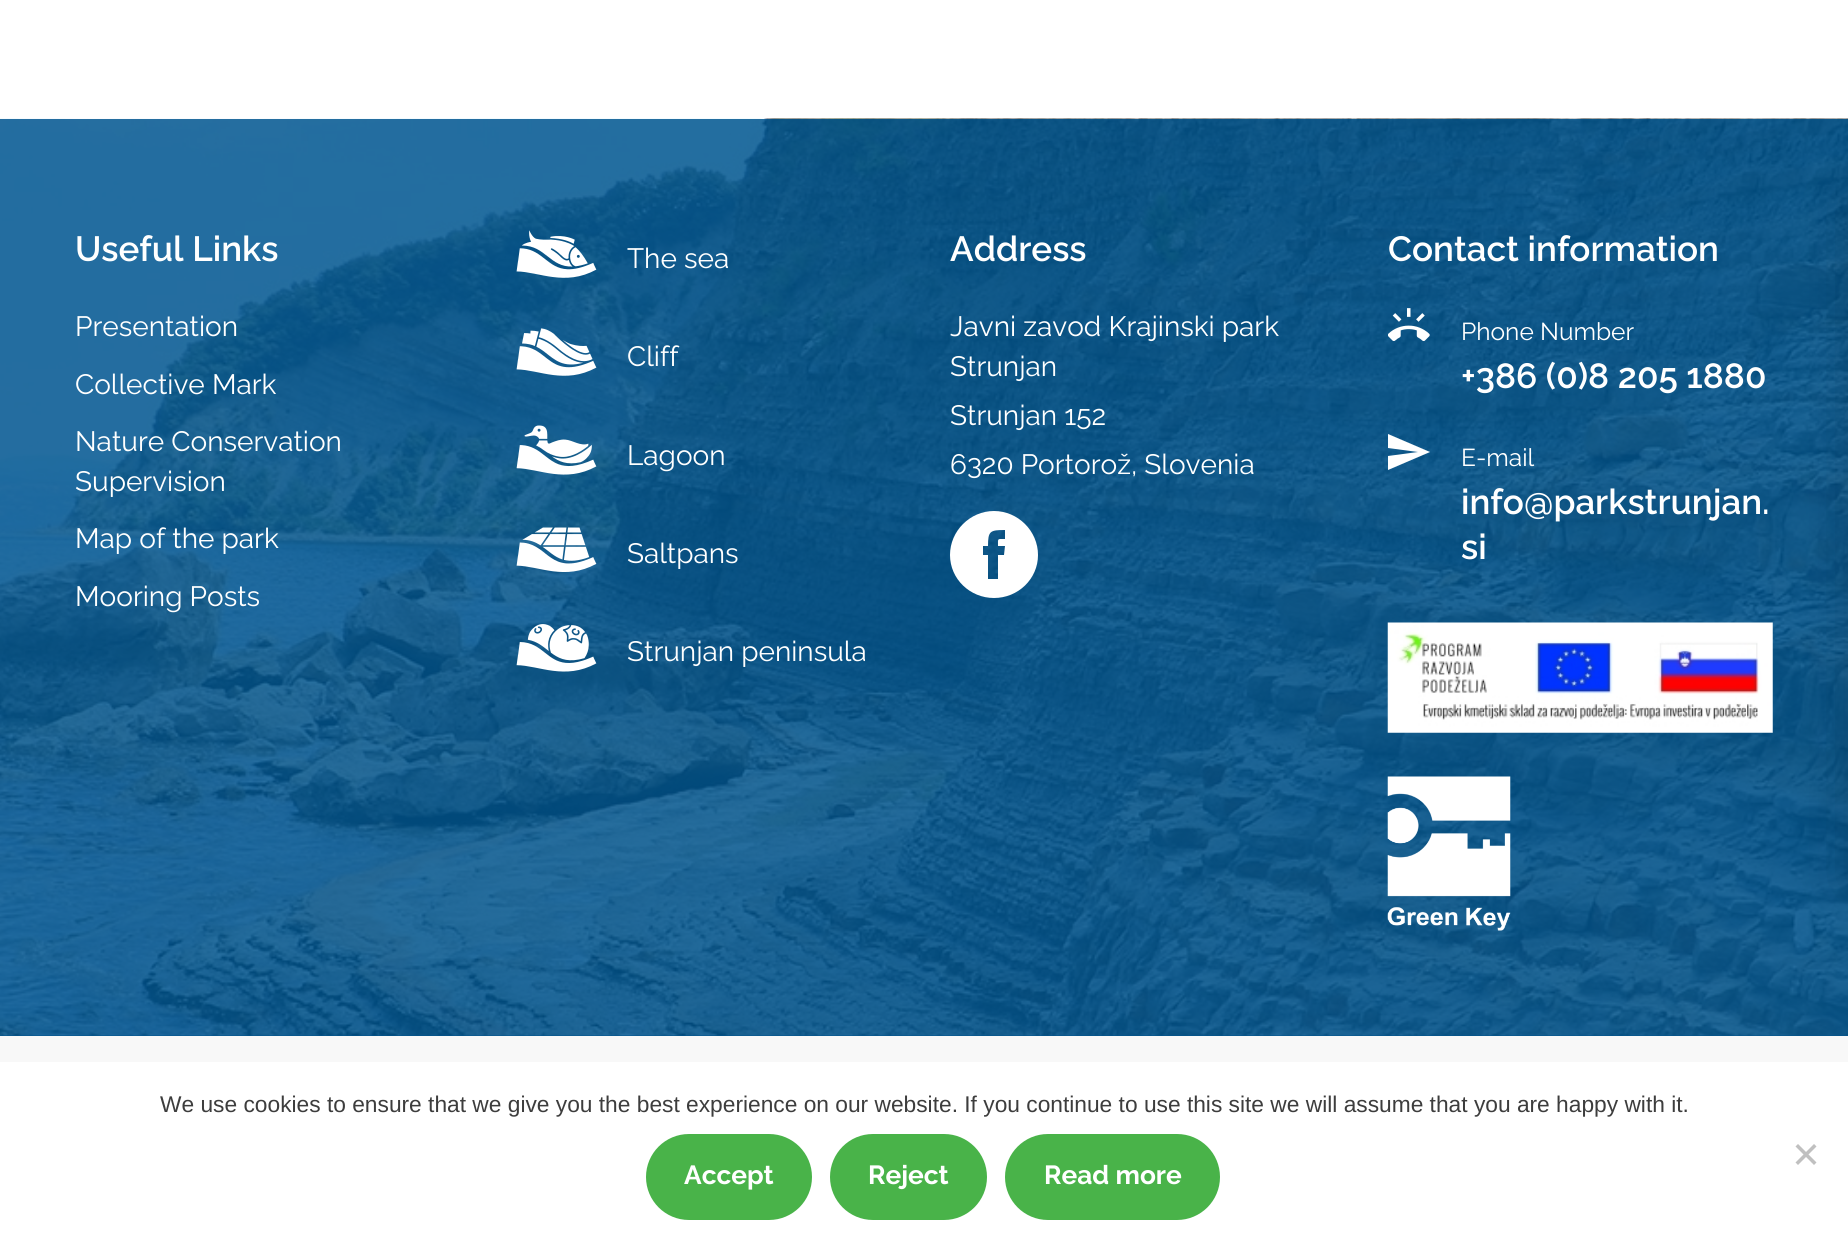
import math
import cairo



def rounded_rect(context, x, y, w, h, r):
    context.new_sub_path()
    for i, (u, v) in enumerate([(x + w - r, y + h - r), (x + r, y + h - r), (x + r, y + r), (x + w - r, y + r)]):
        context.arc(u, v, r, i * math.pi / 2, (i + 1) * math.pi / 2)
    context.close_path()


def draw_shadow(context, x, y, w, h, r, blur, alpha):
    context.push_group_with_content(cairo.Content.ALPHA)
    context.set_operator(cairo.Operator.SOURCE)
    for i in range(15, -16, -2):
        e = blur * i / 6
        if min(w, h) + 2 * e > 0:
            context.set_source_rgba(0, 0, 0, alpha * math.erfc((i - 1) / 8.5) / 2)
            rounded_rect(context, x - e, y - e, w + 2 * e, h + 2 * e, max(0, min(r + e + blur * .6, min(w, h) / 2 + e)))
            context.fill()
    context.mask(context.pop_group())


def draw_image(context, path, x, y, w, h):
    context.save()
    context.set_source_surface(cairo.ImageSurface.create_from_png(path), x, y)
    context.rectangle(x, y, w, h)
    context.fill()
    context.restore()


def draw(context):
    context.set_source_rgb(1, 1, 1)
    context.paint()
    context.set_source_rgb(0, 85 / 255, 143 / 255)
    context.rectangle(0, 1035, 1848, 1)
    context.fill()
    draw_image(context, "images/1.png", 0, 118, 1848, 918)
    draw_image(context, "images/2.png", 516, 230, 81, 48)
    draw_image(context, "images/3.png", 516, 328, 81, 48)
    draw_image(context, "images/4.png", 516, 425, 81, 50)
    draw_image(context, "images/5.png", 516, 527, 81, 45)
    draw_image(context, "images/6.png", 516, 624, 81, 48)
    context.set_source_rgb(1, 1, 1)
    context.new_path()
    context.move_to(994, 511)
    context.curve_to(970, 511, 950, 531, 950, 555)
    context.curve_to(950, 579, 970, 598, 994, 598)
    context.curve_to(1018, 598, 1038, 579, 1038, 555)
    context.curve_to(1038, 531, 1018, 511, 994, 511)
    context.close_path()
    context.move_to(1004, 555)
    context.line_to(998, 555)
    context.line_to(998, 579)
    context.line_to(988, 579)
    context.line_to(988, 555)
    context.line_to(983, 555)
    context.line_to(983, 546)
    context.line_to(988, 546)
    context.curve_to(988, 531, 990, 530, 1005, 530)
    context.line_to(1005, 539)
    context.curve_to(997, 539, 998, 538, 998, 546)
    context.line_to(1005, 546)
    context.close_path()
    context.fill()
    draw_image(context, "images/7.png", 1388, 308, 42, 33)
    context.new_path()
    context.move_to(1388, 470)
    context.line_to(1430, 452)
    context.line_to(1388, 434)
    context.line_to(1388, 448)
    context.line_to(1418, 452)
    context.line_to(1388, 456)
    context.close_path()
    context.fill()
    draw_image(context, "images/8.png", 1387, 622, 386, 111)
    draw_image(context, "images/9.png", 1387, 776, 124, 155)
    context.set_source_rgb(248 / 255, 248 / 255, 248 / 255)
    context.rectangle(0, 1036, 1848, 26)
    context.fill()
    context.set_source_rgb(0, 0, 0)
    draw_shadow(context, 1848, 198, 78, 689, 0, 26, 0.16)
    context.set_source_rgb(192 / 255, 192 / 255, 192 / 255)
    context.new_path()
    context.move_to(1814, 1144)
    context.line_to(1816.5, 1146.5)
    context.line_to(1798, 1165)
    context.line_to(1795.5, 1162.5)
    context.close_path()
    context.fill()
    context.new_path()
    context.move_to(1795.5, 1146.5)
    context.line_to(1798, 1144)
    context.line_to(1816.5, 1162.5)
    context.line_to(1814, 1165)
    context.close_path()
    context.fill()
    context.set_source_rgb(73 / 255, 179 / 255, 73 / 255)
    rounded_rect(context, 648, 1136, 162, 82, 41)
    context.fill_preserve()
    context.set_line_width(4)
    context.stroke()
    rounded_rect(context, 832, 1136, 153, 82, 41)
    context.fill_preserve()
    context.stroke()
    rounded_rect(context, 1007, 1136, 211, 82, 41)
    context.fill_preserve()
    context.stroke()
    context.select_font_face("Raleway SemiBold")
    context.set_font_size(35)
    context.set_source_rgb(1, 1, 1)
    context.move_to(75, 261)
    context.show_text("Useful Links")
    context.select_font_face("Raleway")
    context.set_font_size(28)
    context.move_to(75, 336)
    context.show_text("Presentation")
    context.move_to(75, 394)
    context.show_text("Collective Mark")
    context.move_to(75, 451)
    context.show_text("Nature Conservation")
    context.move_to(75, 491)
    context.show_text("Supervision")
    context.move_to(75, 548)
    context.show_text("Map of the park")
    context.move_to(75, 606)
    context.show_text("Mooring Posts")
    context.move_to(627, 268)
    context.show_text("The sea")
    context.move_to(627, 366)
    context.show_text("Cliff")
    context.move_to(627, 465)
    context.show_text("Lagoon")
    context.move_to(627, 563)
    context.show_text("Saltpans")
    context.move_to(627, 661)
    context.show_text("Strunjan peninsula")
    context.select_font_face("Raleway SemiBold")
    context.set_font_size(35)
    context.move_to(950, 261)
    context.show_text("Address")
    context.select_font_face("Raleway")
    context.set_font_size(28)
    context.move_to(950, 336)
    context.show_text("Javni zavod Krajinski park")
    context.move_to(950, 376)
    context.show_text("Strunjan")
    context.move_to(950, 425)
    context.show_text("Strunjan 152")
    context.move_to(950, 474)
    context.show_text("6320 Portorož, Slovenia")
    context.select_font_face("Raleway SemiBold")
    context.set_font_size(35)
    context.move_to(1388, 261)
    context.show_text("Contact information")
    context.select_font_face("Raleway")
    context.set_font_size(24.5)
    context.move_to(1461, 340)
    context.show_text("Phone Number")
    context.select_font_face("Raleway SemiBold")
    context.set_font_size(35)
    context.move_to(1461, 388)
    context.show_text("+386 (0)8 205 1880")
    context.select_font_face("Raleway")
    context.set_font_size(24.5)
    context.move_to(1461, 466)
    context.show_text("E-mail")
    context.select_font_face("Raleway SemiBold")
    context.set_font_size(35)
    context.move_to(1461, 514)
    context.show_text("info@parkstrunjan.")
    context.move_to(1461, 559)
    context.show_text("si")
    context.select_font_face("Liberation Sans")
    context.set_font_size(22.75)
    context.set_source_rgb(61 / 255, 61 / 255, 61 / 255)
    context.move_to(160, 1112)
    context.show_text("We use cookies to ensure that we give you the best experience on our website. If you continue to use this site we will assume that you are happy with it.")
    context.select_font_face("Raleway", cairo.FontSlant.NORMAL, cairo.FontWeight.BOLD)
    context.set_font_size(26.25)
    context.set_source_rgb(1, 1, 1)
    context.move_to(684, 1184)
    context.show_text("Accept")
    context.move_to(868, 1184)
    context.show_text("Reject")
    context.move_to(1044, 1184)
    context.show_text("Read more")


surface = cairo.ImageSurface(cairo.Format.RGB24, 1848, 1245)
context = cairo.Context(surface)
options = cairo.FontOptions()
options.set_hint_metrics(cairo.HintMetrics.OFF)
options.set_hint_style(cairo.HintStyle.NONE)
context.set_font_options(options)
context.set_miter_limit(4)
draw(context)
surface.write_to_png("out.png")
